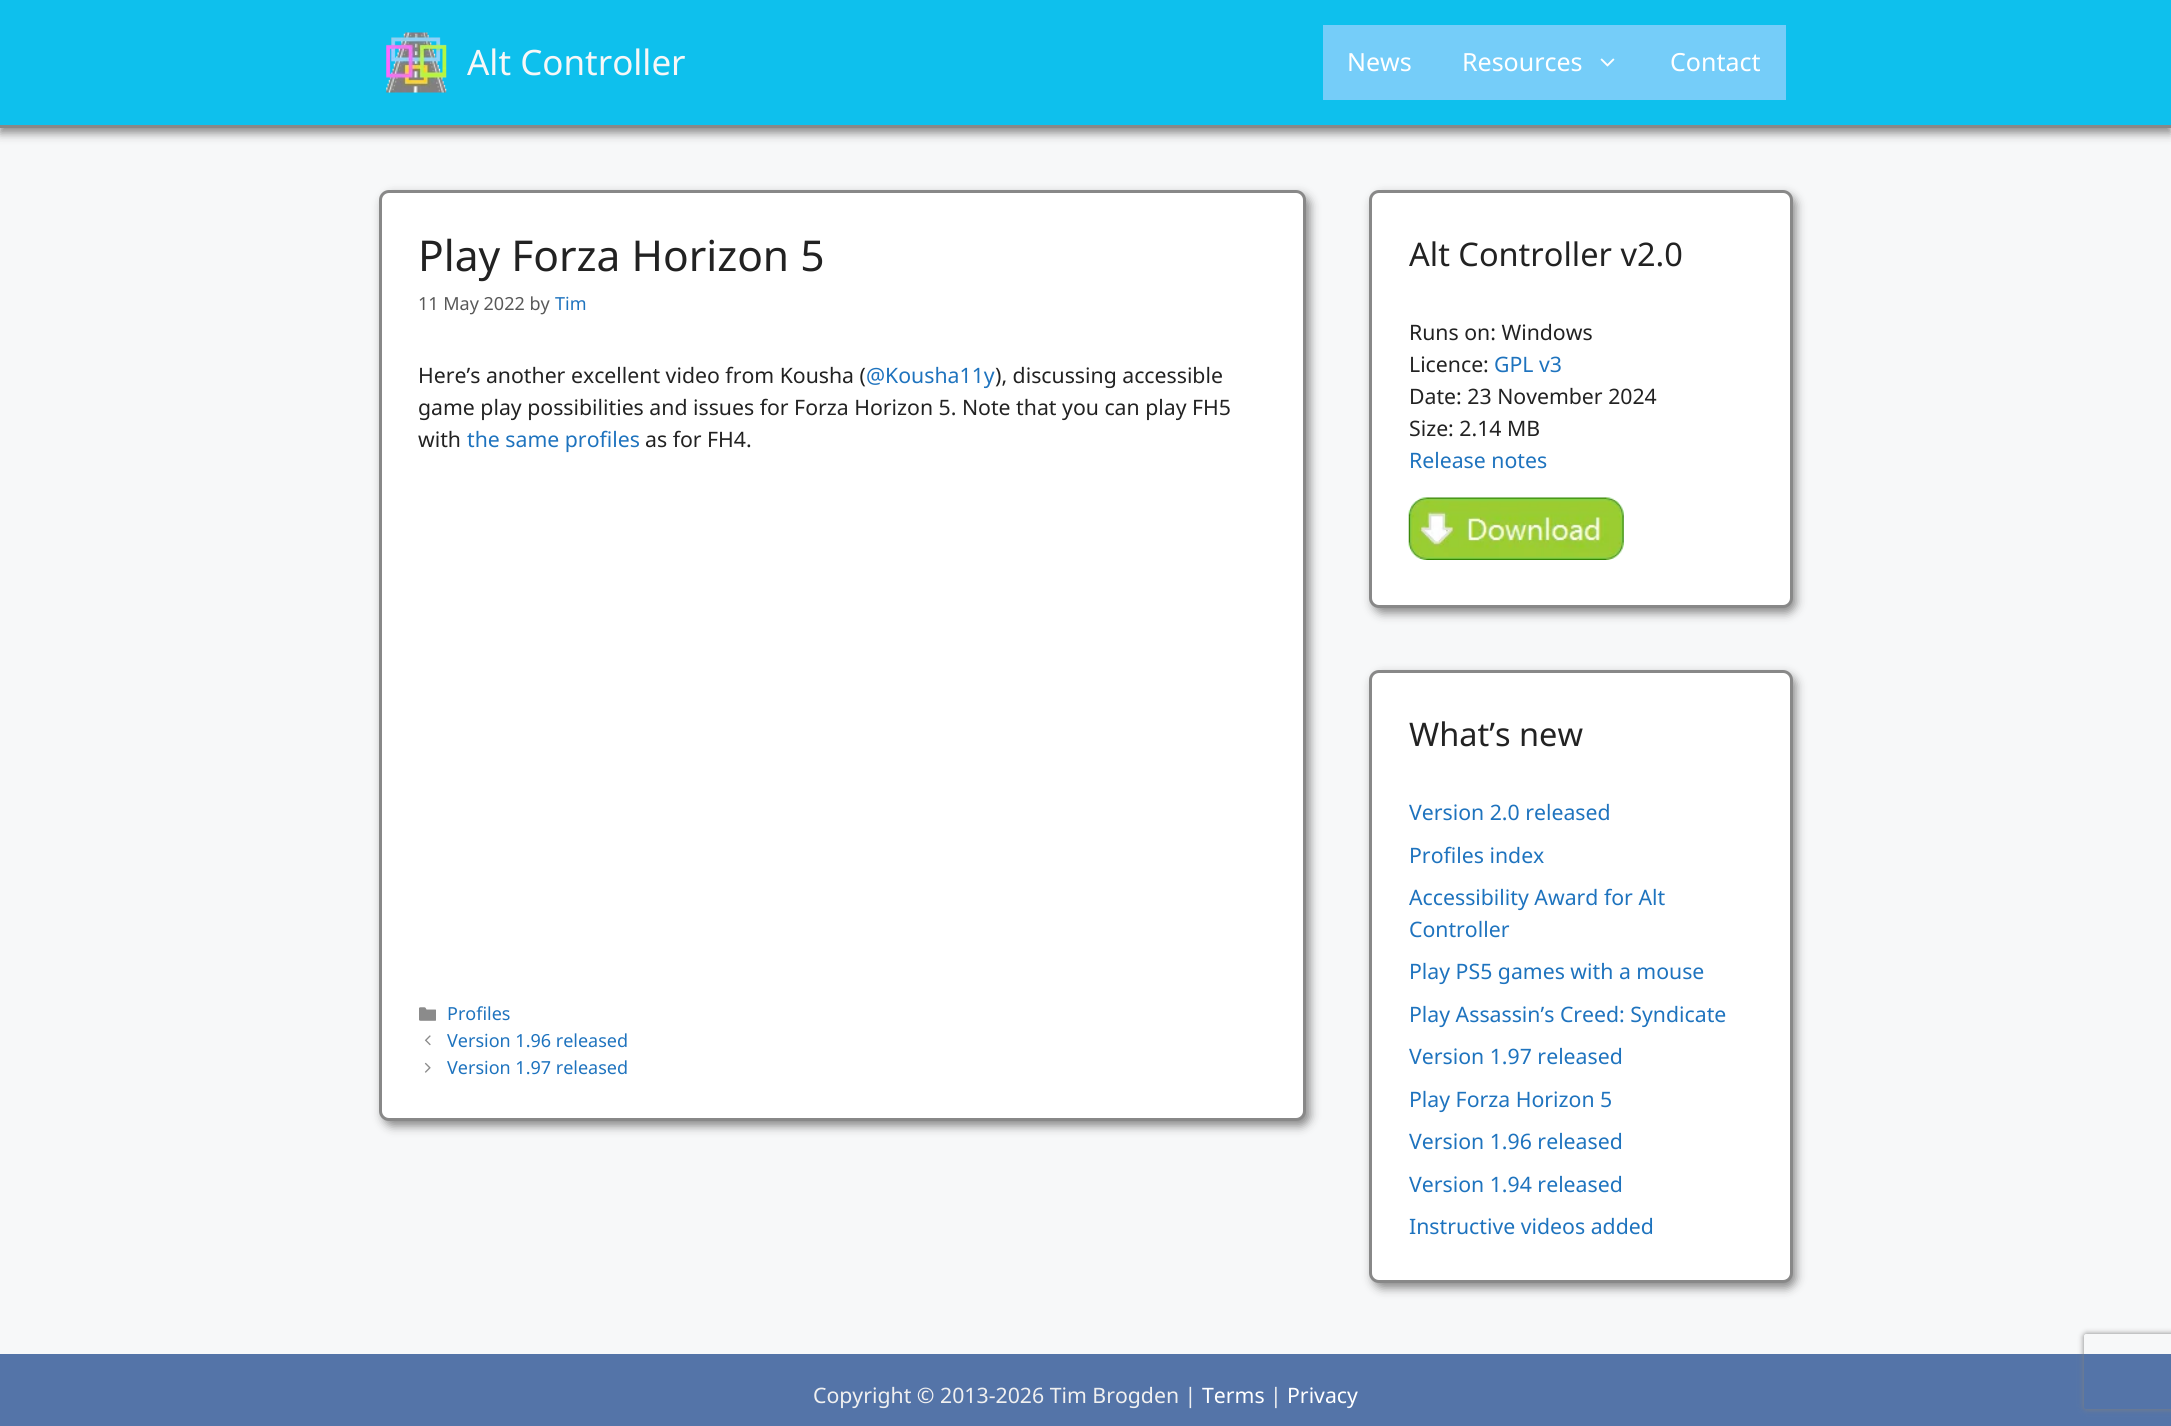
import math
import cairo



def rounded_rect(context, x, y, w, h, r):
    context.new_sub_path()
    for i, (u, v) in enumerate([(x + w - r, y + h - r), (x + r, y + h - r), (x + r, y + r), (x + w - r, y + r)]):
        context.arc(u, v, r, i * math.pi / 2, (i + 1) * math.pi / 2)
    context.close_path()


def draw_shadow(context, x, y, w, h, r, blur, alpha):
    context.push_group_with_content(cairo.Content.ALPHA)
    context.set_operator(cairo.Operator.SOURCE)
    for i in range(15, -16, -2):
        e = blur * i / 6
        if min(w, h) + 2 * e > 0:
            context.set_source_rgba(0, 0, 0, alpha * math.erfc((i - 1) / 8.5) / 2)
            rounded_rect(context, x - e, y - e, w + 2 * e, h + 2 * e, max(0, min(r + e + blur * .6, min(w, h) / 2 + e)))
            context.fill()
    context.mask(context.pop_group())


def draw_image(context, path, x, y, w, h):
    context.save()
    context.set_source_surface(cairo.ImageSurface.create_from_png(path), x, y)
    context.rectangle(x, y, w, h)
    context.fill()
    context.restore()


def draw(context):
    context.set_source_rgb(247 / 255, 248 / 255, 249 / 255)
    context.paint()
    context.set_source_rgb(136 / 255, 136 / 255, 136 / 255)
    draw_shadow(context, 0, 5, 2171, 128, 0, 5, 1)
    context.set_source_rgb(14 / 255, 192 / 255, 237 / 255)
    context.rectangle(0, 0, 2171, 125)
    context.fill()
    context.set_source_rgb(136 / 255, 136 / 255, 136 / 255)
    context.rectangle(0, 125, 2171, 3)
    context.fill()
    draw_image(context, "images/1.png", 386, 32, 61, 61)
    context.set_source_rgb(117 / 255, 205 / 255, 249 / 255)
    context.rectangle(1323, 25, 463, 75)
    context.fill()
    draw_image(context, "images/2.png", 1600, 58, 15, 9)
    context.set_source_rgb(136 / 255, 136 / 255, 136 / 255)
    draw_shadow(context, 383, 195, 927, 931, 10, 5, 1)
    context.set_source_rgb(1, 1, 1)
    rounded_rect(context, 380.5, 191.5, 924, 928, 8.5)
    context.fill_preserve()
    context.set_source_rgb(136 / 255, 136 / 255, 136 / 255)
    context.set_line_width(3)
    context.stroke()
    draw_image(context, "images/3.png", 419, 1007, 17, 14)
    draw_image(context, "images/4.png", 424, 1035, 7, 11)
    draw_image(context, "images/5.png", 424, 1062, 7, 11)
    context.set_source_rgb(136 / 255, 136 / 255, 136 / 255)
    draw_shadow(context, 1373, 195, 423, 418, 10, 5, 1)
    context.set_source_rgb(1, 1, 1)
    rounded_rect(context, 1370.5, 191.5, 421, 415, 8.5)
    context.fill_preserve()
    context.set_source_rgb(136 / 255, 136 / 255, 136 / 255)
    context.stroke()
    draw_image(context, "images/6.png", 1408, 497, 216, 63)
    context.set_source_rgb(136 / 255, 136 / 255, 136 / 255)
    draw_shadow(context, 1373, 675, 423, 613, 10, 5, 1)
    context.set_source_rgb(1, 1, 1)
    rounded_rect(context, 1370.5, 671.5, 421, 610, 8.5)
    context.fill_preserve()
    context.set_source_rgb(136 / 255, 136 / 255, 136 / 255)
    context.stroke()
    context.set_source_rgb(84 / 255, 116 / 255, 168 / 255)
    context.rectangle(0, 1354, 2171, 72)
    context.fill()
    context.save()
    context.set_fill_rule(cairo.FillRule.EVEN_ODD)
    context.new_path()
    context.move_to(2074, 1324)
    context.line_to(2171, 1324)
    context.line_to(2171, 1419)
    context.line_to(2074, 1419)
    context.close_path()
    context.move_to(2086.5, 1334)
    context.line_to(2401.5, 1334)
    context.curve_to(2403, 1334, 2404, 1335, 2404, 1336.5)
    context.line_to(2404, 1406.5)
    context.curve_to(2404, 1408, 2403, 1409, 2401.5, 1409)
    context.line_to(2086.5, 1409)
    context.curve_to(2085, 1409, 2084, 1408, 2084, 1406.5)
    context.line_to(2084, 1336.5)
    context.curve_to(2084, 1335, 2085, 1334, 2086.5, 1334)
    context.close_path()
    context.clip()
    context.set_source_rgb(128 / 255, 128 / 255, 128 / 255)
    draw_shadow(context, 2084, 1334, 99, 75, 2.5, 3, 1)
    context.restore()
    context.select_font_face("Noto Sans")
    context.set_font_size(35)
    context.set_source_rgb(247 / 255, 247 / 255, 247 / 255)
    context.move_to(467, 75)
    context.show_text("Alt Controller")
    context.set_font_size(25)
    context.set_source_rgb(1, 1, 1)
    context.move_to(1347, 71)
    context.show_text("News")
    context.move_to(1462, 71)
    context.show_text("Resources")
    context.move_to(1670, 71)
    context.show_text("Contact")
    context.set_font_size(42.5)
    context.set_source_rgb(34 / 255, 34 / 255, 34 / 255)
    context.move_to(418, 271)
    context.show_text("Play Forza Horizon 5")
    context.set_font_size(18)
    context.set_source_rgb(89 / 255, 89 / 255, 89 / 255)
    context.move_to(418, 310)
    context.show_text("11 May 2022 by")
    context.set_source_rgb(30 / 255, 115 / 255, 190 / 255)
    context.move_to(555, 310)
    context.show_text("Tim")
    context.set_font_size(21.25)
    context.set_source_rgb(34 / 255, 34 / 255, 34 / 255)
    context.move_to(418, 383)
    context.show_text("Here’s another excellent video from Kousha (")
    context.set_source_rgb(30 / 255, 115 / 255, 190 / 255)
    context.move_to(866, 383)
    context.show_text("@Kousha11y")
    context.set_source_rgb(34 / 255, 34 / 255, 34 / 255)
    context.move_to(995, 383)
    context.show_text("), discussing accessible")
    context.move_to(418, 415)
    context.show_text("game play possibilities and issues for Forza Horizon 5. Note that you can play FH5")
    context.move_to(418, 447)
    context.show_text("with")
    context.set_source_rgb(30 / 255, 115 / 255, 190 / 255)
    context.move_to(467, 447)
    context.show_text("the same profiles")
    context.set_source_rgb(34 / 255, 34 / 255, 34 / 255)
    context.move_to(645, 447)
    context.show_text("as for FH4.")
    context.set_font_size(18)
    context.set_source_rgb(30 / 255, 115 / 255, 190 / 255)
    context.move_to(447, 1020)
    context.show_text("Profiles")
    context.move_to(447, 1047)
    context.show_text("Version 1.96 released")
    context.move_to(447, 1074)
    context.show_text("Version 1.97 released")
    context.set_font_size(32.5)
    context.set_source_rgb(34 / 255, 34 / 255, 34 / 255)
    context.move_to(1409, 266)
    context.show_text("Alt Controller v2.0")
    context.set_font_size(21.25)
    context.move_to(1409, 340)
    context.show_text("Runs on: Windows")
    context.move_to(1409, 372)
    context.show_text("Licence:")
    context.set_source_rgb(30 / 255, 115 / 255, 190 / 255)
    context.move_to(1494, 372)
    context.show_text("GPL v3")
    context.set_source_rgb(34 / 255, 34 / 255, 34 / 255)
    context.move_to(1409, 404)
    context.show_text("Date: 23 November 2024")
    context.move_to(1409, 436)
    context.show_text("Size: 2.14 MB")
    context.set_source_rgb(30 / 255, 115 / 255, 190 / 255)
    context.move_to(1409, 468)
    context.show_text("Release notes")
    context.set_font_size(32.5)
    context.set_source_rgb(34 / 255, 34 / 255, 34 / 255)
    context.move_to(1409, 746)
    context.show_text("What’s new")
    context.set_font_size(21.25)
    context.set_source_rgb(30 / 255, 115 / 255, 190 / 255)
    context.move_to(1409, 820)
    context.show_text("Version 2.0 released")
    context.move_to(1409, 863)
    context.show_text("Profiles index")
    context.move_to(1409, 905)
    context.show_text("Accessibility Award for Alt")
    context.move_to(1409, 937)
    context.show_text("Controller")
    context.move_to(1409, 979)
    context.show_text("Play PS5 games with a mouse")
    context.move_to(1409, 1022)
    context.show_text("Play Assassin’s Creed: Syndicate")
    context.move_to(1409, 1064)
    context.show_text("Version 1.97 released")
    context.move_to(1409, 1107)
    context.show_text("Play Forza Horizon 5")
    context.move_to(1409, 1149)
    context.show_text("Version 1.96 released")
    context.move_to(1409, 1192)
    context.show_text("Version 1.94 released")
    context.move_to(1409, 1234)
    context.show_text("Instructive videos added")
    context.set_source_rgb(240 / 255, 240 / 255, 240 / 255)
    context.move_to(813, 1403)
    context.show_text("Copyright © 2013-2026 Tim Brogden |")
    context.set_source_rgb(1, 1, 1)
    context.move_to(1202, 1403)
    context.show_text("Terms")
    context.set_source_rgb(240 / 255, 240 / 255, 240 / 255)
    context.move_to(1270, 1403)
    context.show_text("|")
    context.set_source_rgb(1, 1, 1)
    context.move_to(1287, 1403)
    context.show_text("Privacy")


surface = cairo.ImageSurface(cairo.Format.RGB24, 2171, 1426)
context = cairo.Context(surface)
options = cairo.FontOptions()
options.set_hint_metrics(cairo.HintMetrics.OFF)
options.set_hint_style(cairo.HintStyle.NONE)
context.set_font_options(options)
context.set_miter_limit(4)
draw(context)
surface.write_to_png("out.png")
